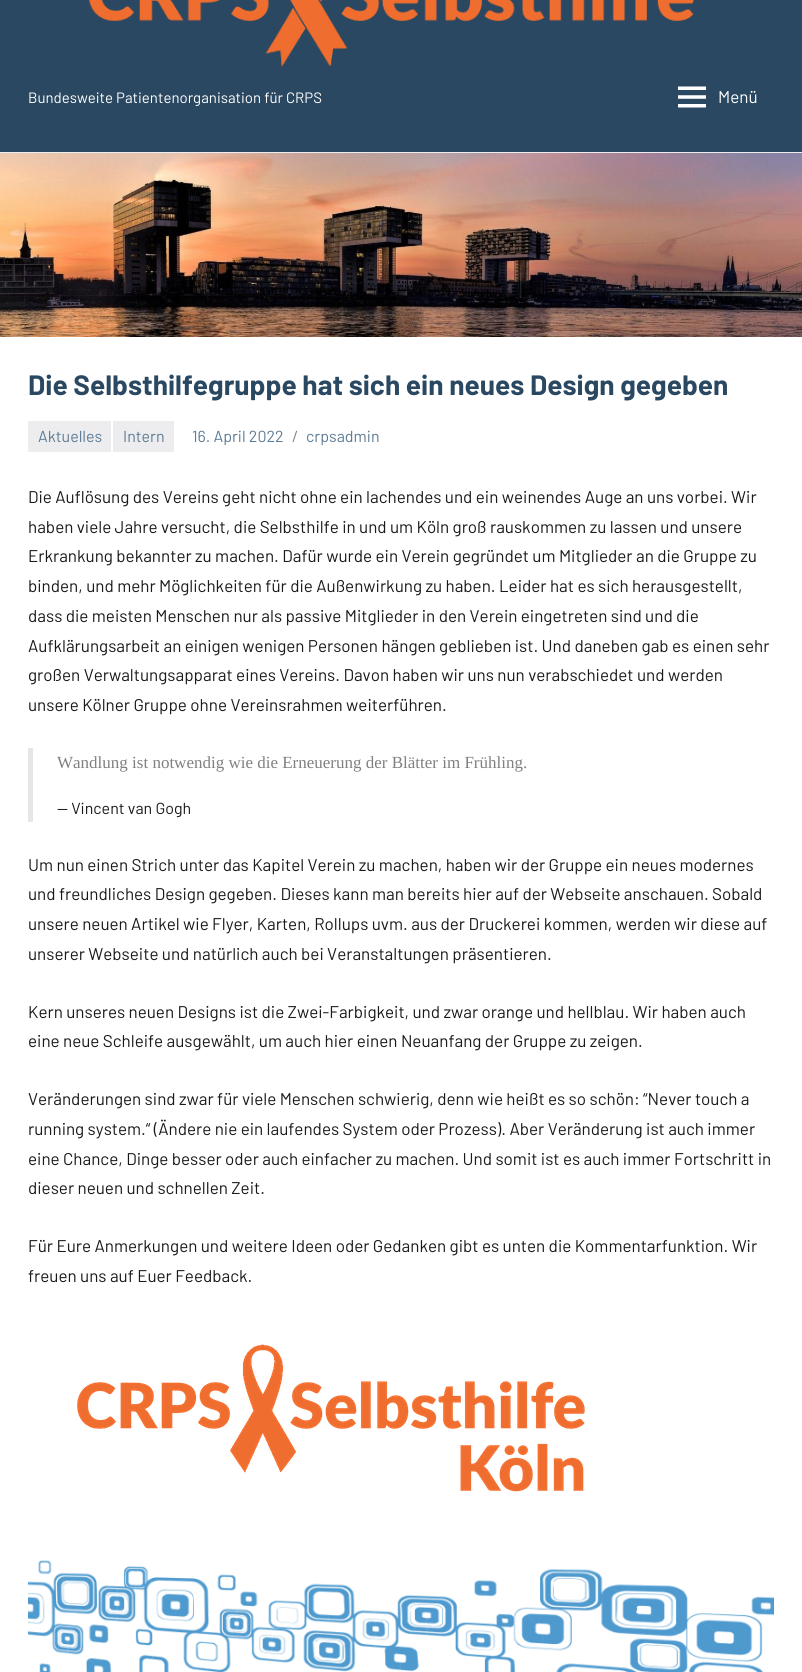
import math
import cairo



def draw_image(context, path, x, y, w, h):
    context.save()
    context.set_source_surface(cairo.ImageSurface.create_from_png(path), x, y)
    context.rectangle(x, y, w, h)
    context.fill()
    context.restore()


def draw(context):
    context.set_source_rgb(237 / 255, 237 / 255, 239 / 255)
    context.paint()
    context.set_source_rgb(42 / 255, 72 / 255, 97 / 255)
    context.rectangle(0, 0, 802, 152)
    context.fill()
    draw_image(context, "images/1.png", 88, 0, 607, 66)
    draw_image(context, "images/2.png", 678, 86, 28, 22)
    draw_image(context, "images/3.png", 0, 153, 802, 184)
    context.set_source_rgb(1, 1, 1)
    context.rectangle(0, 337, 802, 1335)
    context.fill()
    context.set_source_rgb(237 / 255, 237 / 255, 239 / 255)
    context.rectangle(28, 421, 83, 31)
    context.fill()
    context.rectangle(113, 421, 61, 31)
    context.fill()
    context.set_source_rgb(230 / 255, 230 / 255, 230 / 255)
    context.rectangle(28, 748, 5, 74)
    context.fill()
    draw_image(context, "images/4.png", 77, 1344, 508, 148)
    draw_image(context, "images/5.png", 28, 1560, 746, 112)
    context.select_font_face("Barlow")
    context.set_font_size(15)
    context.set_source_rgb(1, 1, 1)
    context.move_to(28, 103)
    context.show_text("Bundesweite Patientenorganisation für CRPS")
    context.set_font_size(17)
    context.move_to(718, 103)
    context.show_text("Menü")
    context.select_font_face("Barlow", cairo.FontSlant.NORMAL, cairo.FontWeight.BOLD)
    context.set_font_size(28)
    context.set_source_rgb(42 / 255, 72 / 255, 97 / 255)
    context.move_to(28, 395)
    context.show_text("Die Selbsthilfegruppe hat sich ein neues Design gegeben")
    context.select_font_face("Barlow")
    context.set_font_size(16)
    context.set_source_rgb(93 / 255, 123 / 255, 148 / 255)
    context.move_to(38, 442)
    context.show_text("Aktuelles")
    context.move_to(123, 442)
    context.show_text("Intern")
    context.move_to(192, 442)
    context.show_text("16. April 2022")
    context.set_source_rgb(128 / 255, 128 / 255, 128 / 255)
    context.move_to(292, 442)
    context.show_text("/")
    context.set_source_rgb(93 / 255, 123 / 255, 148 / 255)
    context.move_to(306, 442)
    context.show_text("crpsadmin")
    context.set_font_size(17)
    context.set_source_rgb(26 / 255, 26 / 255, 26 / 255)
    context.move_to(28, 503)
    context.show_text("Die Auflösung des Vereins geht nicht ohne ein lachendes und ein weinendes Auge an uns vorbei. Wir")
    context.move_to(28, 533)
    context.show_text("haben viele Jahre versucht, die Selbsthilfe in und um Köln groß rauskommen zu lassen und unsere")
    context.move_to(28, 562)
    context.show_text("Erkrankung bekannter zu machen. Dafür wurde ein Verein gegründet um Mitglieder an die Gruppe zu")
    context.move_to(28, 592)
    context.show_text("binden, und mehr Möglichkeiten für die Außenwirkung zu haben. Leider hat es sich herausgestellt,")
    context.move_to(28, 622)
    context.show_text("dass die meisten Menschen nur als passive Mitglieder in den Verein eingetreten sind und die")
    context.move_to(28, 652)
    context.show_text("Aufklärungsarbeit an einigen wenigen Personen hängen geblieben ist. Und daneben gab es einen sehr")
    context.move_to(28, 681)
    context.show_text("großen Verwaltungsapparat eines Vereins. Davon haben wir uns nun verabschiedet und werden")
    context.move_to(28, 711)
    context.show_text("unsere Kölner Gruppe ohne Vereinsrahmen weiterführen.")
    context.select_font_face("Liberation Serif")
    context.set_source_rgb(128 / 255, 128 / 255, 128 / 255)
    context.move_to(57, 768)
    context.show_text("Wandlung ist notwendig wie die Erneuerung der Blätter im Frühling.")
    context.select_font_face("Barlow")
    context.set_font_size(16)
    context.set_source_rgb(26 / 255, 26 / 255, 26 / 255)
    context.move_to(57, 814)
    context.show_text("— Vincent van Gogh")
    context.set_font_size(17)
    context.move_to(28, 871)
    context.show_text("Um nun einen Strich unter das Kapitel Verein zu machen, haben wir der Gruppe ein neues modernes")
    context.move_to(28, 900)
    context.show_text("und freundliches Design gegeben. Dieses kann man bereits hier auf der Webseite anschauen. Sobald")
    context.move_to(28, 930)
    context.show_text("unsere neuen Artikel wie Flyer, Karten, Rollups uvm. aus der Druckerei kommen, werden wir diese auf")
    context.move_to(28, 960)
    context.show_text("unserer Webseite und natürlich auch bei Veranstaltungen präsentieren.")
    context.move_to(28, 1018)
    context.show_text("Kern unseres neuen Designs ist die Zwei-Farbigkeit, und zwar orange und hellblau. Wir haben auch")
    context.move_to(28, 1047)
    context.show_text("eine neue Schleife ausgewählt, um auch hier einen Neuanfang der Gruppe zu zeigen.")
    context.move_to(28, 1105)
    context.show_text("Veränderungen sind zwar für viele Menschen schwierig, denn wie heißt es so schön: “Never touch a")
    context.move_to(28, 1135)
    context.show_text("running system.“ (Ändere nie ein laufendes System oder Prozess). Aber Veränderung ist auch immer")
    context.move_to(28, 1165)
    context.show_text("eine Chance, Dinge besser oder auch einfacher zu machen. Und somit ist es auch immer Fortschritt in")
    context.move_to(28, 1194)
    context.show_text("dieser neuen und schnellen Zeit.")
    context.move_to(28, 1252)
    context.show_text("Für Eure Anmerkungen und weitere Ideen oder Gedanken gibt es unten die Kommentarfunktion. Wir")
    context.move_to(28, 1282)
    context.show_text("freuen uns auf Euer Feedback.")


surface = cairo.ImageSurface(cairo.Format.RGB24, 802, 1672)
context = cairo.Context(surface)
options = cairo.FontOptions()
options.set_hint_metrics(cairo.HintMetrics.OFF)
options.set_hint_style(cairo.HintStyle.NONE)
context.set_font_options(options)
context.set_miter_limit(4)
draw(context)
surface.write_to_png("out.png")
